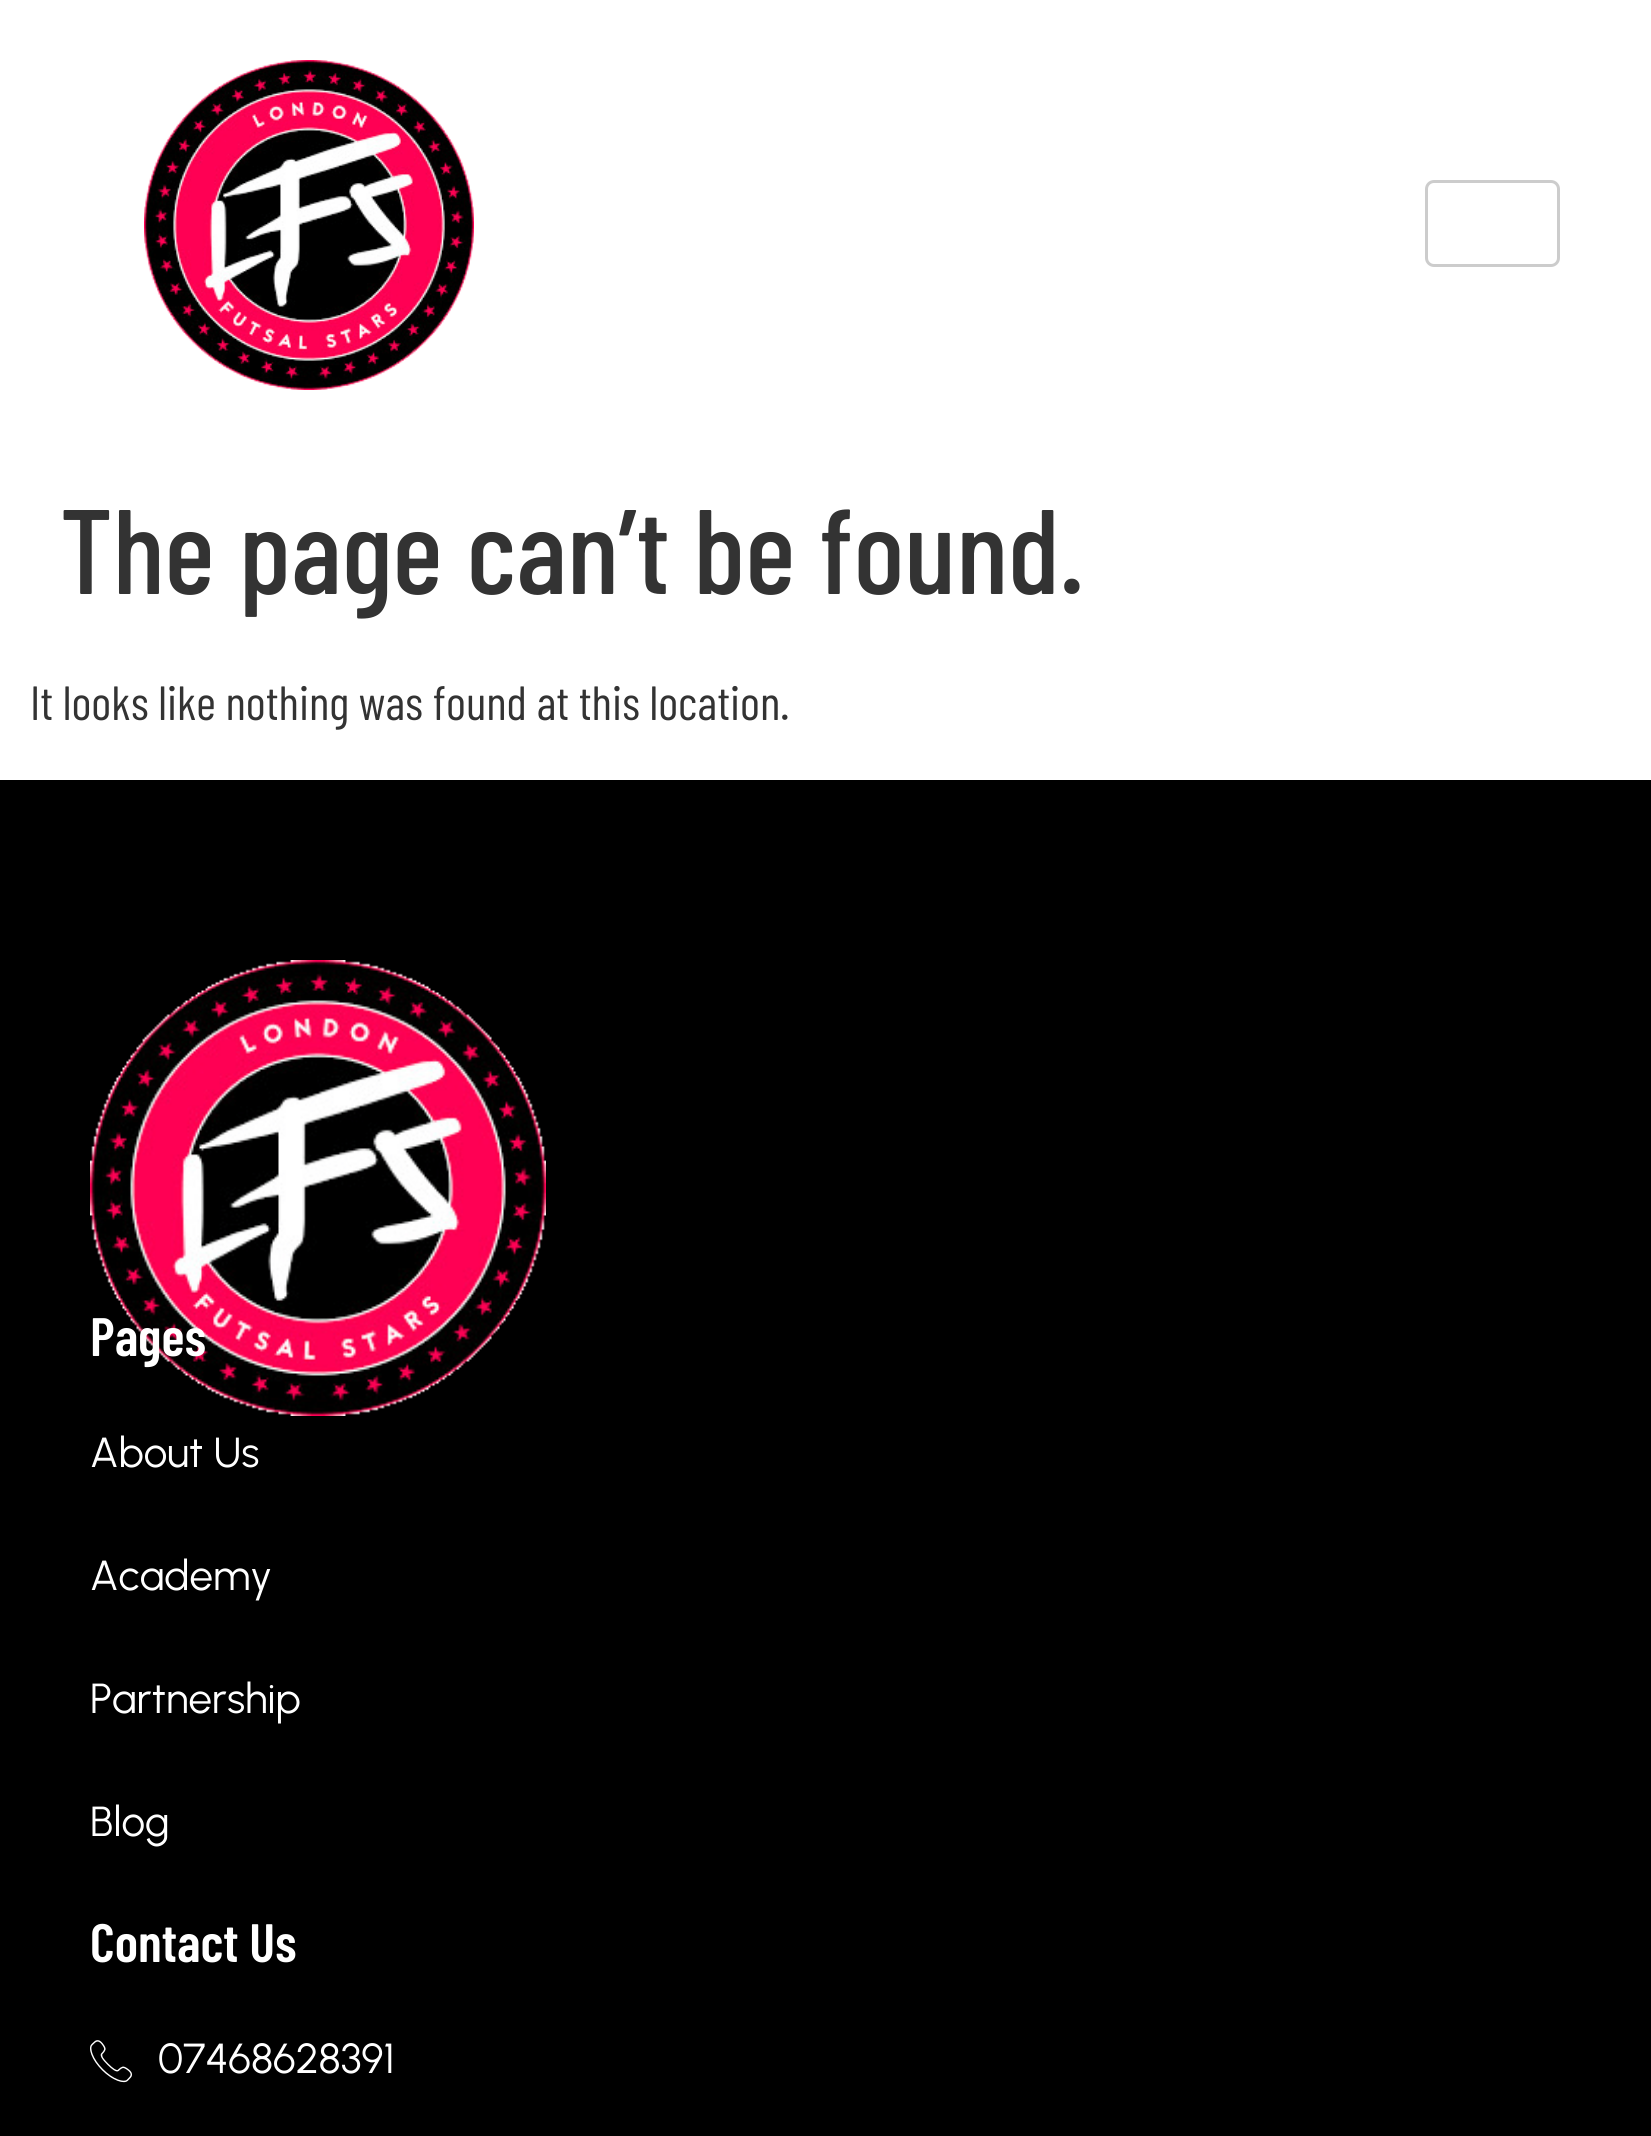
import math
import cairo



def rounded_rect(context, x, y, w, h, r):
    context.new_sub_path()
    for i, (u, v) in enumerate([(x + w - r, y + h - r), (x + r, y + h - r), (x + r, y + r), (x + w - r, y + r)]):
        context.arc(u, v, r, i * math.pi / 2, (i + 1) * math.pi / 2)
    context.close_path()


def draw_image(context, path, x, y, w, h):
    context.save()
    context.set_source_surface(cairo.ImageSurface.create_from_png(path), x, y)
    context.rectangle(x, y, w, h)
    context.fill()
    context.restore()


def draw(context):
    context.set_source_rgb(1, 1, 1)
    context.paint()
    draw_image(context, "images/1.png", 144, 60, 330, 330)
    rounded_rect(context, 1426.5, 181.5, 132, 84, 7.5)
    context.set_source_rgb(204 / 255, 204 / 255, 204 / 255)
    context.set_line_width(3)
    context.stroke()
    context.set_source_rgb(0, 0, 0)
    context.rectangle(0, 780, 1651, 1356)
    context.fill()
    draw_image(context, "images/2.png", 90, 960, 456, 456)
    draw_image(context, "images/3.png", 90, 2040, 42, 43)
    context.select_font_face("Barlow Condensed Medium")
    context.set_font_size(120)
    context.set_source_rgb(51 / 255, 51 / 255, 51 / 255)
    context.move_to(60, 594)
    context.show_text("The page can’t be found.")
    context.select_font_face("Barlow Condensed")
    context.set_font_size(48)
    context.move_to(30, 720)
    context.show_text("It looks like nothing was found at this location.")
    context.select_font_face("Barlow Condensed SemiBold")
    context.set_font_size(54)
    context.set_source_rgb(1, 1, 1)
    context.move_to(90, 1356)
    context.show_text("Pages")
    context.select_font_face("Urbanist")
    context.set_font_size(42)
    context.move_to(90, 1467)
    context.show_text("About Us")
    context.move_to(90, 1590)
    context.show_text("Academy")
    context.move_to(90, 1713)
    context.show_text("Partnership")
    context.move_to(90, 1836)
    context.show_text("Blog")
    context.select_font_face("Barlow Condensed SemiBold")
    context.set_font_size(54)
    context.move_to(90, 1962)
    context.show_text("Contact Us")
    context.select_font_face("Urbanist")
    context.set_font_size(42)
    context.move_to(158, 2073)
    context.show_text("07468628391")


surface = cairo.ImageSurface(cairo.Format.RGB24, 1651, 2136)
context = cairo.Context(surface)
options = cairo.FontOptions()
options.set_hint_metrics(cairo.HintMetrics.OFF)
options.set_hint_style(cairo.HintStyle.NONE)
context.set_font_options(options)
context.set_miter_limit(4)
draw(context)
surface.write_to_png("out.png")
